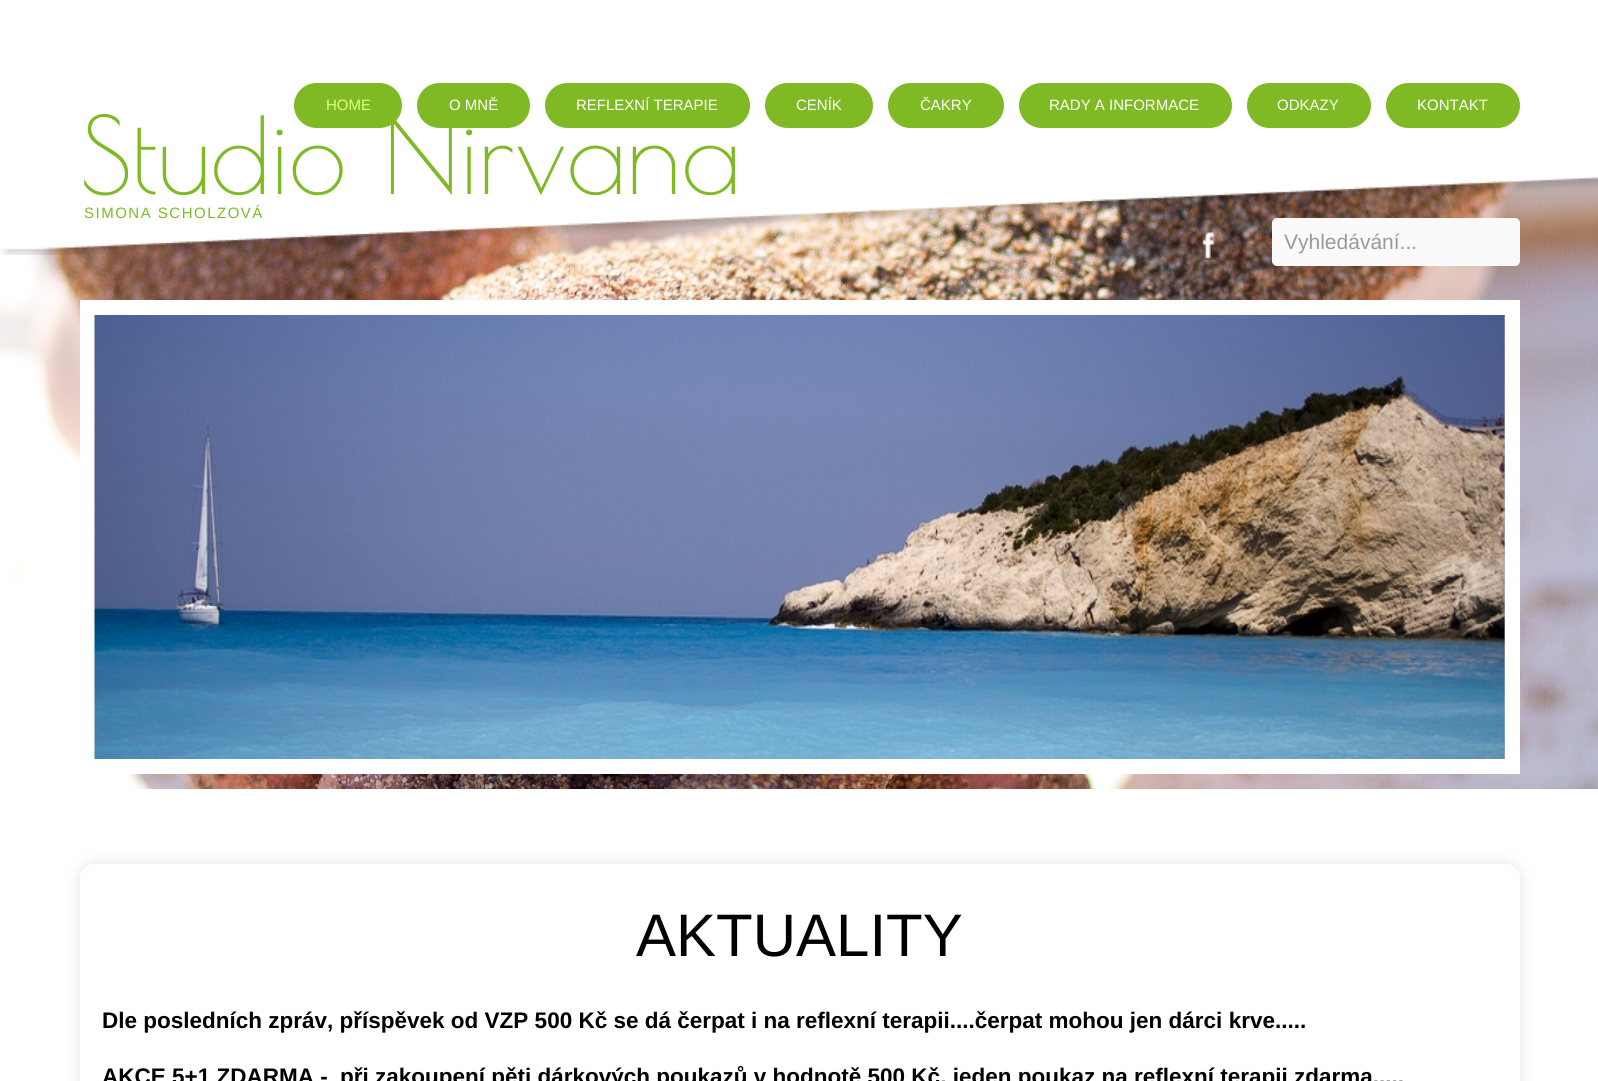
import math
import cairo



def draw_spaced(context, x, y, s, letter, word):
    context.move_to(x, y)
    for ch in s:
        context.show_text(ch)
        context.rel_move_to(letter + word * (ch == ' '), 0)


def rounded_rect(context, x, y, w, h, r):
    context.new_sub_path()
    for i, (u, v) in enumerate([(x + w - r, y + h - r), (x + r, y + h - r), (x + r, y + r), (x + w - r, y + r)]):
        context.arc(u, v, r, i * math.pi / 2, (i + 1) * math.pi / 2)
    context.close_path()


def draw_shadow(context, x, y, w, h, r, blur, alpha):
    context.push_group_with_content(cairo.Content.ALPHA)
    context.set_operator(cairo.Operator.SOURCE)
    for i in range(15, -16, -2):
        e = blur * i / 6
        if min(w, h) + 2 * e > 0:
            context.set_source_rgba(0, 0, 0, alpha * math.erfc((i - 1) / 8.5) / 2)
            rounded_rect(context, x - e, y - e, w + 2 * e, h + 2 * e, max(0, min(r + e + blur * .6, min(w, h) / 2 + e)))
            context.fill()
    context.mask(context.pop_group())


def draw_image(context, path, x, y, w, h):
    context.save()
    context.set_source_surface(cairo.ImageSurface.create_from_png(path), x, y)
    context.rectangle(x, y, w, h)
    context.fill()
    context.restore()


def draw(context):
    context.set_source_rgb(1, 1, 1)
    context.paint()
    draw_image(context, "images/1.png", 0, 176, 1598, 613)
    draw_image(context, "images/3.png", 0, 120, 1598, 135)
    context.set_source_rgb(127 / 255, 186 / 255, 36 / 255)
    rounded_rect(context, 294, 83, 108, 45, 22.5)
    context.fill()
    rounded_rect(context, 417, 83, 113, 45, 22.5)
    context.fill()
    rounded_rect(context, 545, 83, 205, 45, 22.5)
    context.fill()
    rounded_rect(context, 765, 83, 108, 45, 22.5)
    context.fill()
    rounded_rect(context, 888, 83, 116, 45, 22.5)
    context.fill()
    rounded_rect(context, 1019, 83, 213, 45, 22.5)
    context.fill()
    rounded_rect(context, 1247, 83, 124, 45, 22.5)
    context.fill()
    rounded_rect(context, 1386, 83, 134, 45, 22.5)
    context.fill()
    draw_image(context, "images/2.png", 1202, 232, 12, 27)
    context.set_source_rgb(250 / 255, 250 / 255, 250 / 255)
    rounded_rect(context, 1272, 218, 248, 48, 5)
    context.fill()
    context.rectangle(87.5, 307.5, 1425, 459)
    context.set_source_rgb(1, 1, 1)
    context.set_line_width(15)
    context.stroke()
    draw_image(context, "images/4.png", 94, 315, 1411, 444)
    context.save()
    context.set_fill_rule(cairo.FillRule.EVEN_ODD)
    context.new_path()
    context.move_to(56, 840)
    context.line_to(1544, 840)
    context.line_to(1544, 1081)
    context.line_to(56, 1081)
    context.close_path()
    context.move_to(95, 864)
    context.line_to(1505, 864)
    context.curve_to(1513.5, 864, 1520, 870.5, 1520, 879)
    context.line_to(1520, 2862)
    context.curve_to(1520, 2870.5, 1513.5, 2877, 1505, 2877)
    context.line_to(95, 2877)
    context.curve_to(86.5, 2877, 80, 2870.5, 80, 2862)
    context.line_to(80, 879)
    context.curve_to(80, 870.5, 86.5, 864, 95, 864)
    context.close_path()
    context.clip()
    context.set_source_rgb(229 / 255, 229 / 255, 229 / 255)
    draw_shadow(context, 80, 864, 1440, 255, 15, 7.5, 1)
    context.restore()
    context.select_font_face("Liberation Sans")
    context.set_font_size(15)
    context.set_source_rgb(221 / 255, 1, 135 / 255)
    context.move_to(326, 110)
    context.show_text("HOME")
    context.set_source_rgb(1, 1, 1)
    context.move_to(449, 110)
    context.show_text("O MNĚ")
    context.move_to(576, 110)
    context.show_text("REFLEXNÍ TERAPIE")
    context.move_to(796, 110)
    context.show_text("CENÍK")
    context.move_to(920, 110)
    context.show_text("ČAKRY")
    context.move_to(1049, 110)
    context.show_text("RADY A INFORMACE")
    context.move_to(1277, 110)
    context.show_text("ODKAZY")
    context.move_to(1417, 110)
    context.show_text("KONTAKT")
    context.select_font_face("Poiret One")
    context.set_font_size(105)
    context.set_source_rgb(127 / 255, 186 / 255, 36 / 255)
    context.move_to(80, 194)
    context.show_text("Studio Nirvana")
    context.select_font_face("Liberation Sans")
    context.set_font_size(15)
    draw_spaced(context, 84, 218, "SIMONA SCHOLZOVÁ", 1.5, 0)
    context.set_font_size(21)
    context.set_source_rgb(153 / 255, 153 / 255, 153 / 255)
    context.move_to(1284, 249)
    context.show_text("Vyhledávání...")
    context.set_font_size(60)
    context.set_source_rgb(0, 0, 0)
    context.move_to(636, 956)
    context.show_text("AKTUALITY")
    context.select_font_face("Liberation Sans", cairo.FontSlant.NORMAL, cairo.FontWeight.BOLD)
    context.set_font_size(22.5)
    context.move_to(102, 1028)
    context.show_text("Dle posledních zpráv, příspěvek od VZP 500 Kč se dá čerpat i na reflexní terapii....čerpat mohou jen dárci krve.....")
    context.move_to(102, 1084)
    context.show_text("AKCE 5+1 ZDARMA -")
    context.move_to(340, 1084)
    context.show_text("při zakoupení pěti dárkových poukazů v hodnotě 500 Kč, jeden poukaz na reflexní terapii zdarma.....")


surface = cairo.ImageSurface(cairo.Format.RGB24, 1598, 1081)
context = cairo.Context(surface)
options = cairo.FontOptions()
options.set_hint_metrics(cairo.HintMetrics.OFF)
options.set_hint_style(cairo.HintStyle.NONE)
context.set_font_options(options)
context.set_miter_limit(4)
draw(context)
surface.write_to_png("out.png")
